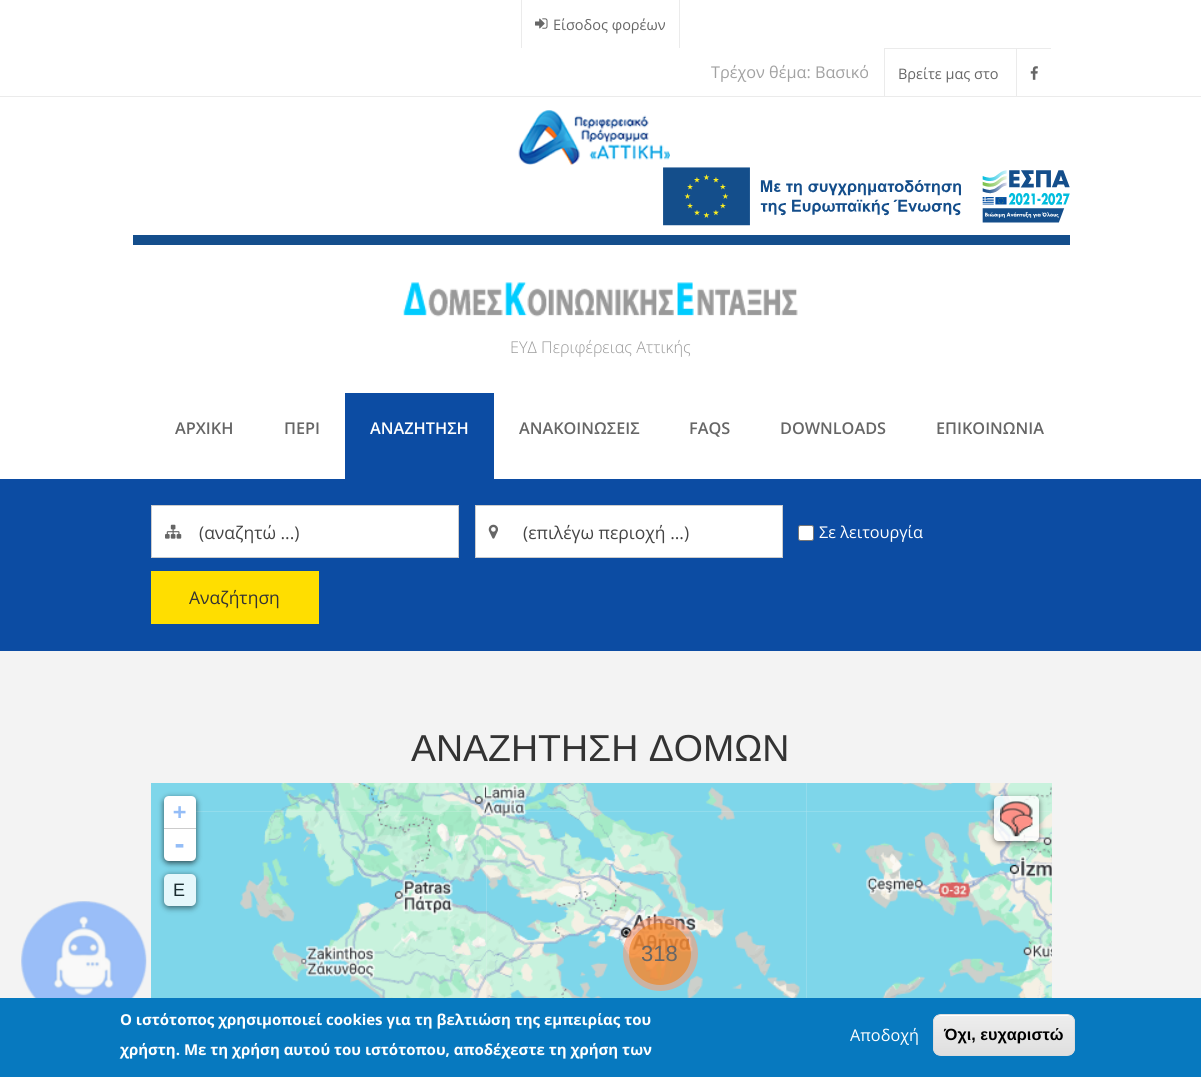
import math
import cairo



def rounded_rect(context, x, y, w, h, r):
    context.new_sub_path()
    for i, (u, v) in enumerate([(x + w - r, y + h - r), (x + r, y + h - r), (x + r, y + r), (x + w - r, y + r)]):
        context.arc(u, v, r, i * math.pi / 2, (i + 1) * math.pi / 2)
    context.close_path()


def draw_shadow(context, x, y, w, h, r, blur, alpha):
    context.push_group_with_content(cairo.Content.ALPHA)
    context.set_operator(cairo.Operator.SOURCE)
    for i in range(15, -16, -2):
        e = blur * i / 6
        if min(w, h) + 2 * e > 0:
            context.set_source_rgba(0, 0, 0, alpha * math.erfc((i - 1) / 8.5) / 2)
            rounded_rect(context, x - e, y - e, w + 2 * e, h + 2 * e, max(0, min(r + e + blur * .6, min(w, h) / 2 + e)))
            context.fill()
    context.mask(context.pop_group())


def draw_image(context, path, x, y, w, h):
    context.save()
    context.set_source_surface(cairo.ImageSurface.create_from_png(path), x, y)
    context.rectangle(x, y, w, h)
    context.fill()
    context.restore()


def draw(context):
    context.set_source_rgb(1, 1, 1)
    context.paint()
    context.set_source_rgb(235 / 255, 235 / 255, 235 / 255)
    context.rectangle(0, 96, 1201, 1)
    context.fill()
    context.rectangle(679, 0, 1, 48)
    context.fill()
    context.rectangle(521, 0, 1, 48)
    context.fill()
    draw_image(context, "images/1.png", 535, 18, 13, 11)
    context.rectangle(884, 48, 167, 1)
    context.fill()
    context.rectangle(884, 49, 1, 47)
    context.fill()
    context.rectangle(1016, 49, 1, 47)
    context.fill()
    draw_image(context, "images/2.png", 1030, 66, 8, 14)
    context.set_source_rgb(20 / 255, 78 / 255, 140 / 255)
    context.rectangle(133, 235, 937, 10)
    context.fill()
    draw_image(context, "images/3.png", 518, 110, 152, 55)
    draw_image(context, "images/4.png", 663, 167, 407, 59)
    draw_image(context, "images/5.png", 403, 282, 395, 35)
    context.set_source_rgb(12 / 255, 76 / 255, 163 / 255)
    context.rectangle(345, 393, 149, 86)
    context.fill()
    context.rectangle(0, 479, 1201, 172)
    context.fill()
    context.set_source_rgb(1, 1, 1)
    context.rectangle(151.5, 505.5, 307, 52)
    context.fill_preserve()
    context.set_source_rgb(204 / 255, 204 / 255, 204 / 255)
    context.set_line_width(1)
    context.stroke()
    draw_image(context, "images/6.png", 165, 524, 17, 15)
    context.set_source_rgb(1, 1, 1)
    context.rectangle(475.5, 505.5, 307, 52)
    context.fill_preserve()
    context.set_source_rgb(204 / 255, 204 / 255, 204 / 255)
    context.stroke()
    draw_image(context, "images/7.png", 488, 524, 10, 15)
    context.set_source_rgb(1, 1, 1)
    rounded_rect(context, 798.5, 525.5, 15, 15, 2)
    context.fill_preserve()
    context.set_source_rgb(118 / 255, 118 / 255, 118 / 255)
    context.stroke()
    context.set_source_rgb(1, 222 / 255, 0)
    context.rectangle(151, 571, 168, 53)
    context.fill()
    context.set_source_rgb(243 / 255, 243 / 255, 243 / 255)
    context.rectangle(0, 651, 1201, 347)
    context.fill()
    draw_image(context, "images/8.png", 21, 901, 126, 97)
    context.set_source_rgb(126 / 255, 214 / 255, 234 / 255)
    context.rectangle(151, 783, 16, 215)
    context.fill()
    draw_image(context, "images/13.png", 167, 811, 320, 187)
    draw_image(context, "images/14.png", 486, 811, 321, 187)
    draw_image(context, "images/10.png", 167, 783, 320, 29)
    context.set_source_rgb(0, 0, 0)
    draw_shadow(context, 164, 798, 32, 65, 5, 3, 0.65)
    context.set_source_rgb(1, 1, 1)
    context.new_path()
    context.move_to(169, 796)
    context.line_to(191, 796)
    context.curve_to(194, 796, 196, 798, 196, 801)
    context.line_to(196, 829)
    context.line_to(164, 829)
    context.line_to(164, 801)
    context.curve_to(164, 798, 166, 796, 169, 796)
    context.close_path()
    context.fill()
    context.set_source_rgb(204 / 255, 204 / 255, 204 / 255)
    context.rectangle(164, 828, 32, 1)
    context.fill()
    context.set_source_rgb(1, 1, 1)
    context.new_path()
    context.move_to(164, 829)
    context.line_to(196, 829)
    context.line_to(196, 856)
    context.curve_to(196, 859, 194, 861, 191, 861)
    context.line_to(169, 861)
    context.curve_to(166, 861, 164, 859, 164, 856)
    context.close_path()
    context.fill()
    context.set_source_rgb(25 / 255, 43 / 255, 47 / 255)
    draw_shadow(context, 164, 875, 32, 33, 5, 3, 0.65)
    context.set_source_rgb(229 / 255, 247 / 255, 251 / 255)
    rounded_rect(context, 164, 874, 32, 32, 5)
    context.fill()
    draw_image(context, "images/11.png", 486, 783, 321, 29)
    draw_image(context, "images/15.png", 806, 811, 246, 187)
    draw_image(context, "images/12.png", 806, 783, 246, 29)
    context.save()
    context.set_fill_rule(cairo.FillRule.EVEN_ODD)
    context.new_path()
    context.move_to(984, 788)
    context.line_to(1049, 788)
    context.line_to(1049, 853)
    context.line_to(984, 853)
    context.close_path()
    context.move_to(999, 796)
    context.line_to(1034, 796)
    context.curve_to(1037, 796, 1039, 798, 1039, 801)
    context.line_to(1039, 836)
    context.curve_to(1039, 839, 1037, 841, 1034, 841)
    context.line_to(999, 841)
    context.curve_to(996, 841, 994, 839, 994, 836)
    context.line_to(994, 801)
    context.curve_to(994, 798, 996, 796, 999, 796)
    context.close_path()
    context.clip()
    context.set_source_rgb(0, 0, 0)
    draw_shadow(context, 994, 798, 45, 45, 5, 3, 0.52)
    context.restore()
    context.set_source_rgba(1, 1, 1, 0.8)
    rounded_rect(context, 994, 796, 45, 45, 5)
    context.fill()
    draw_image(context, "images/9.png", 1000, 801, 33, 36)
    context.set_source_rgba(253 / 255, 156 / 255, 115 / 255, 0.6)
    context.arc(660.5, 953.5, 37.5, 0, 2 * math.pi)
    context.fill()
    context.set_source_rgba(241 / 255, 128 / 255, 23 / 255, 0.6)
    context.arc(660, 954, 31, 0, 2 * math.pi)
    context.fill()
    context.set_source_rgb(7 / 255, 121 / 255, 191 / 255)
    context.rectangle(0, 998, 1201, 79)
    context.fill()
    context.save()
    rounded_rect(context, 933, 1014, 142, 42, 8)
    context.clip()
    gradient = cairo.LinearGradient(1004, 1015, 1004, 1055)
    gradient.add_color_stop_rgba(0.05, 237 / 255, 237 / 255, 237 / 255, 1)
    gradient.add_color_stop_rgba(1, 223 / 255, 223 / 255, 223 / 255, 1)
    context.set_source(gradient)
    context.rectangle(933, 1015, 142, 40)
    context.fill()
    context.restore()
    context.set_source_rgb(1, 1, 1)
    context.new_path()
    context.move_to(940, 1016)
    context.line_to(1068, 1016)
    context.curve_to(1071, 1016, 1074, 1019, 1074, 1022)
    context.curve_to(1074, 1010, 1051, 1015, 1047, 1015)
    context.line_to(961, 1015)
    context.curve_to(957, 1015, 934, 1010, 934, 1022)
    context.curve_to(934, 1019, 937, 1016, 940, 1016)
    context.close_path()
    context.fill()
    rounded_rect(context, 933.5, 1014.5, 141, 41, 7.5)
    context.set_source_rgb(220 / 255, 220 / 255, 220 / 255)
    context.stroke()
    context.select_font_face("Open Sans")
    context.set_font_size(14.5)
    context.set_source_rgb(102 / 255, 102 / 255, 102 / 255)
    context.move_to(553, 30)
    context.show_text("Είσοδος φορέων")
    context.set_font_size(16.25)
    context.set_source_rgb(162 / 255, 162 / 255, 162 / 255)
    context.move_to(711, 78)
    context.show_text("Τρέχον θέμα: Βασικό")
    context.set_font_size(14.5)
    context.set_source_rgb(102 / 255, 102 / 255, 102 / 255)
    context.move_to(898, 79)
    context.show_text("Βρείτε μας στο")
    context.select_font_face("Open Sans Light")
    context.set_font_size(16.25)
    context.set_source_rgb(153 / 255, 153 / 255, 153 / 255)
    context.move_to(510, 353)
    context.show_text("ΕΥΔ Περιφέρειας Αττικής")
    context.select_font_face("Open Sans SemiBold")
    context.set_source_rgb(102 / 255, 102 / 255, 102 / 255)
    context.move_to(175, 434)
    context.show_text("ΑΡΧΙΚΗ")
    context.move_to(284, 434)
    context.show_text("ΠΕΡΙ")
    context.set_source_rgb(1, 1, 1)
    context.move_to(370, 434)
    context.show_text("ΑΝΑΖΗΤΗΣΗ")
    context.set_source_rgb(102 / 255, 102 / 255, 102 / 255)
    context.move_to(519, 434)
    context.show_text("ΑΝΑΚΟΙΝΩΣΕΙΣ")
    context.move_to(689, 434)
    context.show_text("FAQS")
    context.move_to(780, 434)
    context.show_text("DOWNLOADS")
    context.move_to(936, 434)
    context.show_text("ΕΠΙΚΟΙΝΩΝΙΑ")
    context.select_font_face("Open Sans")
    context.set_font_size(17.5)
    context.set_source_rgb(68 / 255, 68 / 255, 68 / 255)
    context.move_to(199, 539)
    context.show_text("(αναζητώ ...)")
    context.move_to(523, 539)
    context.show_text("(επιλέγω περιοχή ...)")
    context.set_font_size(16.25)
    context.set_source_rgb(1, 1, 1)
    context.move_to(819, 538)
    context.show_text("Σε λειτουργία")
    context.set_font_size(17.5)
    context.set_source_rgb(51 / 255, 51 / 255, 51 / 255)
    context.move_to(189, 604)
    context.show_text("Αναζήτηση")
    context.select_font_face("Liberation Sans")
    context.set_font_size(37.5)
    context.move_to(411, 761)
    context.show_text("ΑΝΑΖΗΤΗΣΗ ΔΟΜΩΝ")
    context.select_font_face("DejaVu Sans Mono", cairo.FontSlant.NORMAL, cairo.FontWeight.BOLD)
    context.set_font_size(22)
    context.set_source_rgb(148 / 255, 189 / 255, 247 / 255)
    context.move_to(173, 819)
    context.show_text("+")
    context.set_font_size(25)
    context.move_to(172, 853)
    context.show_text("-")
    context.select_font_face("Liberation Sans")
    context.set_font_size(18)
    context.set_source_rgb(25 / 255, 43 / 255, 47 / 255)
    context.move_to(173, 896)
    context.show_text("Ε")
    context.set_font_size(22)
    context.set_source_rgb(102 / 255, 102 / 255, 102 / 255)
    context.move_to(641, 961)
    context.show_text("318")
    context.select_font_face("Open Sans", cairo.FontSlant.NORMAL, cairo.FontWeight.BOLD)
    context.set_font_size(15)
    context.set_source_rgb(1, 1, 1)
    context.move_to(120, 1025)
    context.show_text("Ο ιστότοπος χρησιμοποιεί cookies για τη βελτιώση της εμπειρίας του")
    context.move_to(120, 1055)
    context.show_text("χρήστη. Με τη χρήση αυτού του ιστότοπου, αποδέχεστε τη χρήση των")
    context.select_font_face("Open Sans")
    context.set_font_size(16.25)
    context.move_to(850, 1041)
    context.show_text("Αποδοχή")
    context.select_font_face("Liberation Sans", cairo.FontSlant.NORMAL, cairo.FontWeight.BOLD)
    context.set_source_rgb(0, 0, 0)
    context.move_to(944, 1040)
    context.show_text("Όχι, ευχαριστώ")


surface = cairo.ImageSurface(cairo.Format.RGB24, 1201, 1077)
context = cairo.Context(surface)
options = cairo.FontOptions()
options.set_hint_metrics(cairo.HintMetrics.OFF)
options.set_hint_style(cairo.HintStyle.NONE)
context.set_font_options(options)
context.set_miter_limit(4)
draw(context)
surface.write_to_png("out.png")
